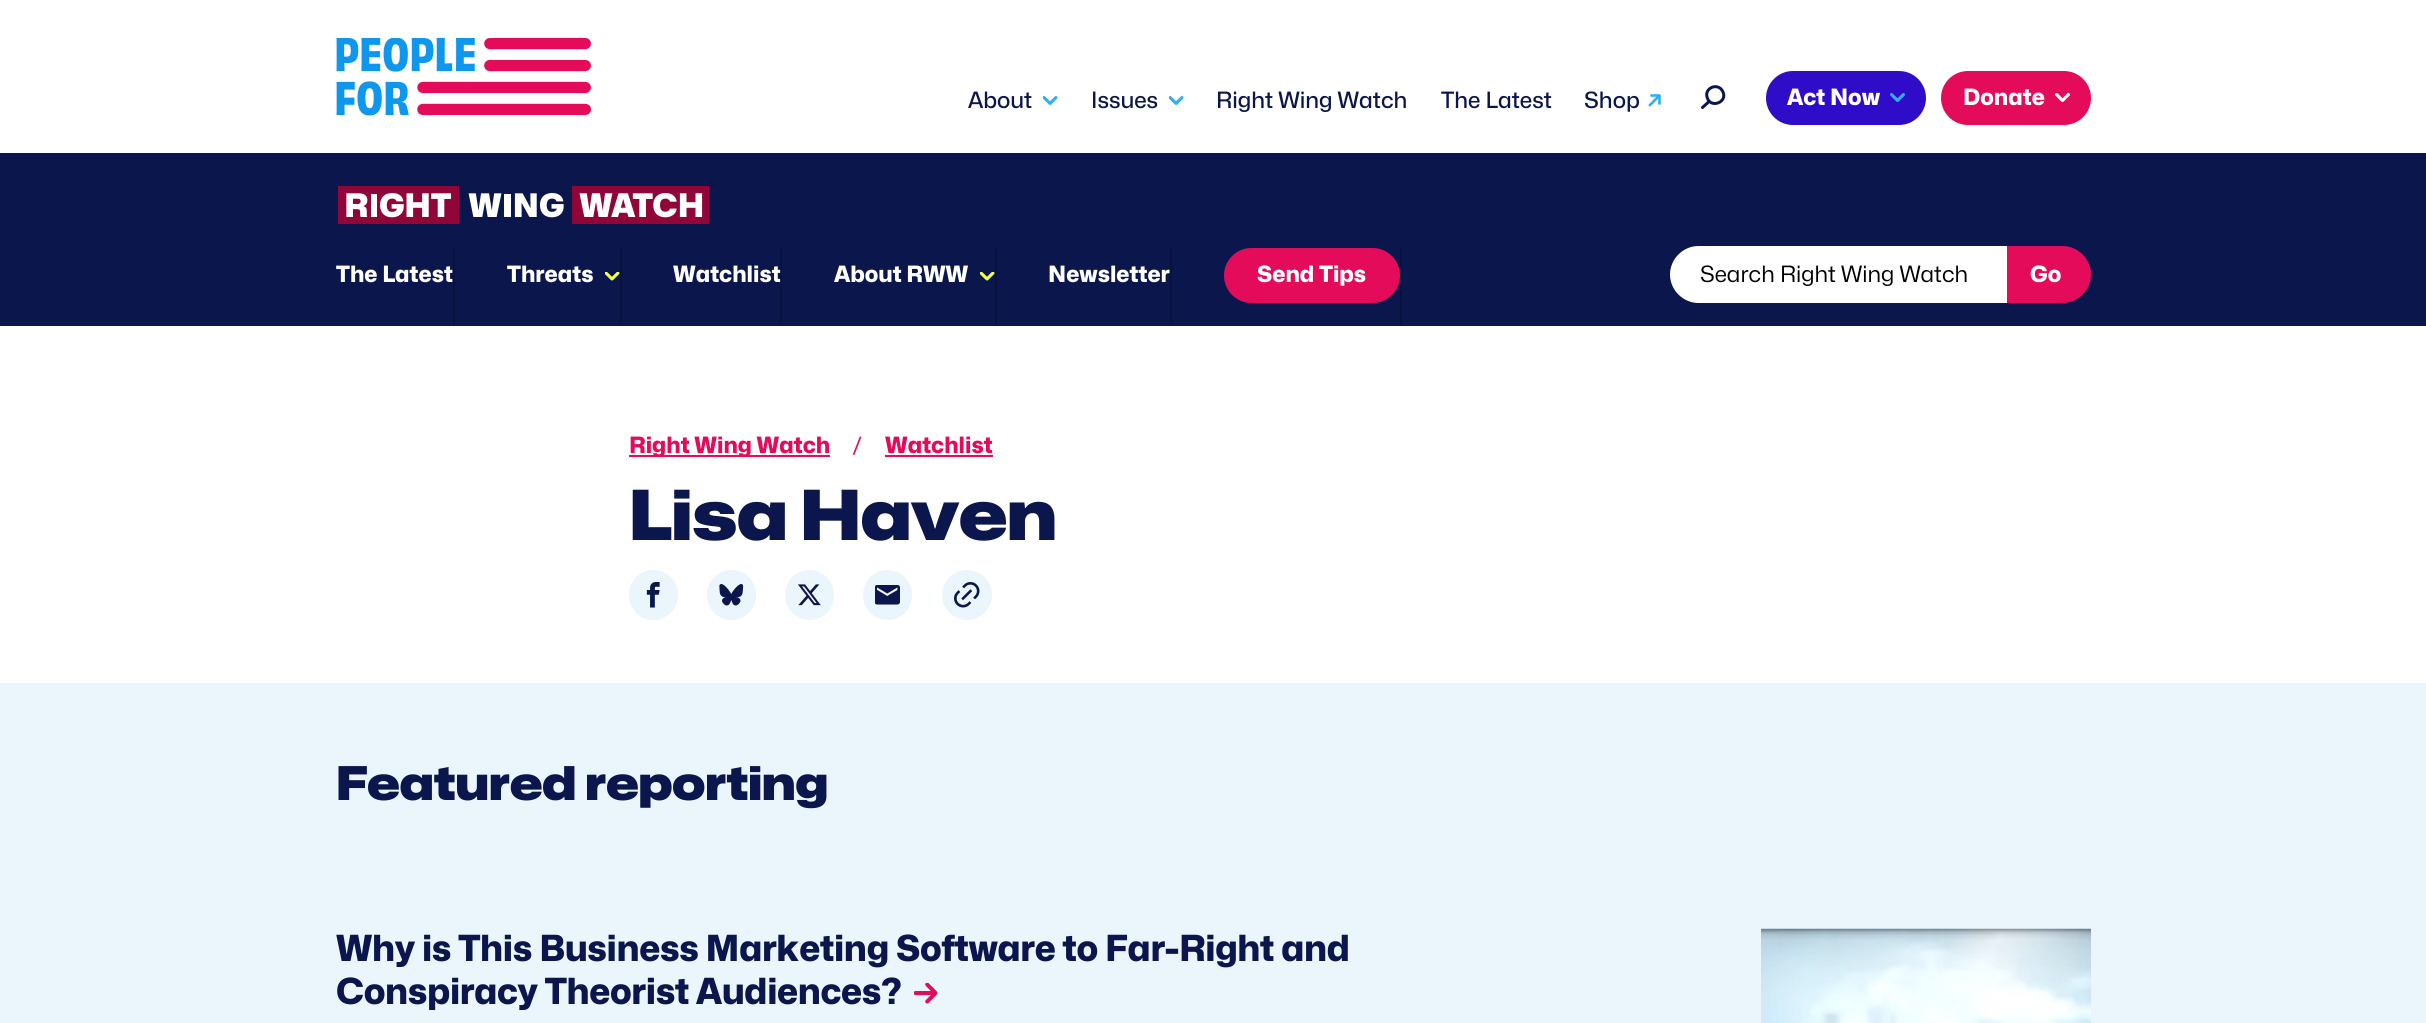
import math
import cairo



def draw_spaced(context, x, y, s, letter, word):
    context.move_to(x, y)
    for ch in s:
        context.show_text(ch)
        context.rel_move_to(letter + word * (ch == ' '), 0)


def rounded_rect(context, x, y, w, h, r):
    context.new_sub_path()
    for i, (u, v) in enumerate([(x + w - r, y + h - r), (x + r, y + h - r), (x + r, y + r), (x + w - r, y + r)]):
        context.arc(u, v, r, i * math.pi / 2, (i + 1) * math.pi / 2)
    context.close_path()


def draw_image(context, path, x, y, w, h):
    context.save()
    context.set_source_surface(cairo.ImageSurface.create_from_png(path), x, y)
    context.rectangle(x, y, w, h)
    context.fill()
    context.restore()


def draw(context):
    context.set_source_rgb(1, 1, 1)
    context.paint()
    draw_image(context, "images/1.png", 336, 38, 255, 78)
    draw_image(context, "images/2.png", 1043, 96, 15, 9)
    draw_image(context, "images/2.png", 1169, 96, 15, 9)
    draw_image(context, "images/3.png", 1648, 94, 13, 13)
    context.new_path()
    context.move_to(1707.5, 98.5)
    context.curve_to(1711.5, 108.5, 1727.5, 102, 1723, 92)
    context.curve_to(1718.5, 81.5, 1703, 88, 1707.5, 98.5)
    context.close_path()
    context.set_source_rgb(11 / 255, 22 / 255, 76 / 255)
    context.set_line_width(3)
    context.stroke()
    context.new_path()
    context.move_to(1708.5, 102)
    context.line_to(1702.5, 107.5)
    context.set_line_cap(cairo.LineCap.ROUND)
    context.stroke()
    context.set_source_rgb(47 / 255, 12 / 255, 200 / 255)
    rounded_rect(context, 1766, 71, 160, 54, 27)
    context.fill()
    draw_image(context, "images/4.png", 1890, 93, 15, 9)
    context.set_source_rgb(229 / 255, 11 / 255, 91 / 255)
    rounded_rect(context, 1941, 71, 150, 54, 27)
    context.fill()
    draw_image(context, "images/5.png", 2055, 93, 15, 9)
    context.set_source_rgb(11 / 255, 22 / 255, 76 / 255)
    context.rectangle(0, 153, 2426, 173)
    context.fill()
    draw_image(context, "images/6.png", 338, 186, 371, 38)
    context.set_source_rgb(9 / 255, 18 / 255, 61 / 255)
    context.rectangle(453, 248, 2, 78)
    context.fill()
    context.rectangle(620, 248, 2, 78)
    context.fill()
    draw_image(context, "images/7.png", 605, 272, 15, 9)
    context.rectangle(780, 248, 2, 78)
    context.fill()
    context.rectangle(995, 248, 2, 78)
    context.fill()
    draw_image(context, "images/7.png", 980, 272, 15, 9)
    context.rectangle(1170, 248, 2, 78)
    context.fill()
    context.rectangle(1400, 248, 2, 78)
    context.fill()
    context.set_source_rgb(229 / 255, 11 / 255, 91 / 255)
    rounded_rect(context, 1224, 248, 176, 55, 27.5)
    context.fill()
    context.set_source_rgb(1, 1, 1)
    context.new_path()
    context.move_to(1698.5, 246)
    context.line_to(2007, 246)
    context.line_to(2007, 303)
    context.line_to(1698.5, 303)
    context.curve_to(1683, 303, 1670, 290, 1670, 274.5)
    context.curve_to(1670, 259, 1683, 246, 1698.5, 246)
    context.close_path()
    context.fill()
    context.set_source_rgb(229 / 255, 11 / 255, 91 / 255)
    context.new_path()
    context.move_to(2007, 246)
    context.line_to(2062.5, 246)
    context.curve_to(2078, 246, 2091, 259, 2091, 274.5)
    context.curve_to(2091, 290, 2078, 303, 2062.5, 303)
    context.line_to(2007, 303)
    context.close_path()
    context.fill()
    context.rectangle(629, 455, 201, 2)
    context.fill()
    context.rectangle(885, 455, 108, 2)
    context.fill()
    context.set_source_rgb(234 / 255, 245 / 255, 252 / 255)
    rounded_rect(context, 629, 570, 49, 50, 24.5)
    context.fill()
    draw_image(context, "images/8.png", 646, 582, 14, 26)
    rounded_rect(context, 707, 570, 49, 50, 24.5)
    context.fill()
    draw_image(context, "images/9.png", 719, 584, 25, 22)
    rounded_rect(context, 785, 570, 49, 50, 24.5)
    context.fill()
    draw_image(context, "images/10.png", 798, 584, 23, 22)
    rounded_rect(context, 863, 570, 49, 50, 24.5)
    context.fill()
    draw_image(context, "images/11.png", 875, 585, 25, 20)
    context.arc(967, 595, 25, 0, 2 * math.pi)
    context.fill()
    draw_image(context, "images/12.png", 954, 582, 26, 26)
    context.rectangle(0, 683, 2426, 340)
    context.fill()
    draw_image(context, "images/13.png", 914, 983, 24, 21)
    draw_image(context, "images/14.png", 1761, 928, 330, 95)
    context.select_font_face("Mona Sans Medium")
    context.set_font_size(22.5)
    context.set_source_rgb(11 / 255, 22 / 255, 76 / 255)
    context.move_to(968, 108)
    context.show_text("About")
    context.move_to(1091, 108)
    context.show_text("Issues")
    context.move_to(1216, 108)
    context.show_text("Right Wing Watch")
    context.move_to(1441, 108)
    context.show_text("The Latest")
    context.move_to(1584, 108)
    context.show_text("Shop")
    context.select_font_face("Mona Sans ExtraBold")
    context.set_source_rgb(1, 1, 1)
    context.move_to(1787, 105)
    context.show_text("Act Now")
    context.move_to(1963, 105)
    context.show_text("Donate")
    context.move_to(336, 282)
    context.show_text("The Latest")
    context.move_to(507, 282)
    context.show_text("Threats")
    context.move_to(673, 282)
    context.show_text("Watchlist")
    context.move_to(834, 282)
    context.show_text("About RWW")
    context.move_to(1048, 282)
    context.show_text("Newsletter")
    context.move_to(1257, 282)
    context.show_text("Send Tips")
    context.select_font_face("Mona Sans")
    context.set_source_rgb(0, 0, 0)
    context.move_to(1700, 282)
    context.show_text("Search Right Wing Watch")
    context.select_font_face("Mona Sans ExtraBold")
    context.set_source_rgb(1, 1, 1)
    context.move_to(2030, 282)
    context.show_text("Go")
    context.set_source_rgb(229 / 255, 11 / 255, 91 / 255)
    context.move_to(629, 453)
    context.show_text("Right Wing Watch")
    context.select_font_face("Mona Sans")
    context.move_to(852, 453)
    context.show_text("/")
    context.select_font_face("Mona Sans ExtraBold")
    context.move_to(885, 453)
    context.show_text("Watchlist")
    context.select_font_face("Mona Sans Black")
    context.set_font_size(69)
    context.set_source_rgb(11 / 255, 22 / 255, 76 / 255)
    draw_spaced(context, 629, 540, "Lisa Haven", -0.75, 0)
    context.set_font_size(46.5)
    draw_spaced(context, 336, 800, "Featured reporting", -0.5, 0)
    context.select_font_face("Mona Sans ExtraBold")
    context.set_font_size(36)
    draw_spaced(context, 336, 961, "Why is This Business Marketing Software to Far-Right and", -0.35, 0)
    draw_spaced(context, 336, 1004, "Conspiracy Theorist Audiences?", -0.35, 0)


surface = cairo.ImageSurface(cairo.Format.RGB24, 2426, 1023)
context = cairo.Context(surface)
options = cairo.FontOptions()
options.set_hint_metrics(cairo.HintMetrics.OFF)
options.set_hint_style(cairo.HintStyle.NONE)
context.set_font_options(options)
context.set_miter_limit(4)
draw(context)
surface.write_to_png("out.png")
